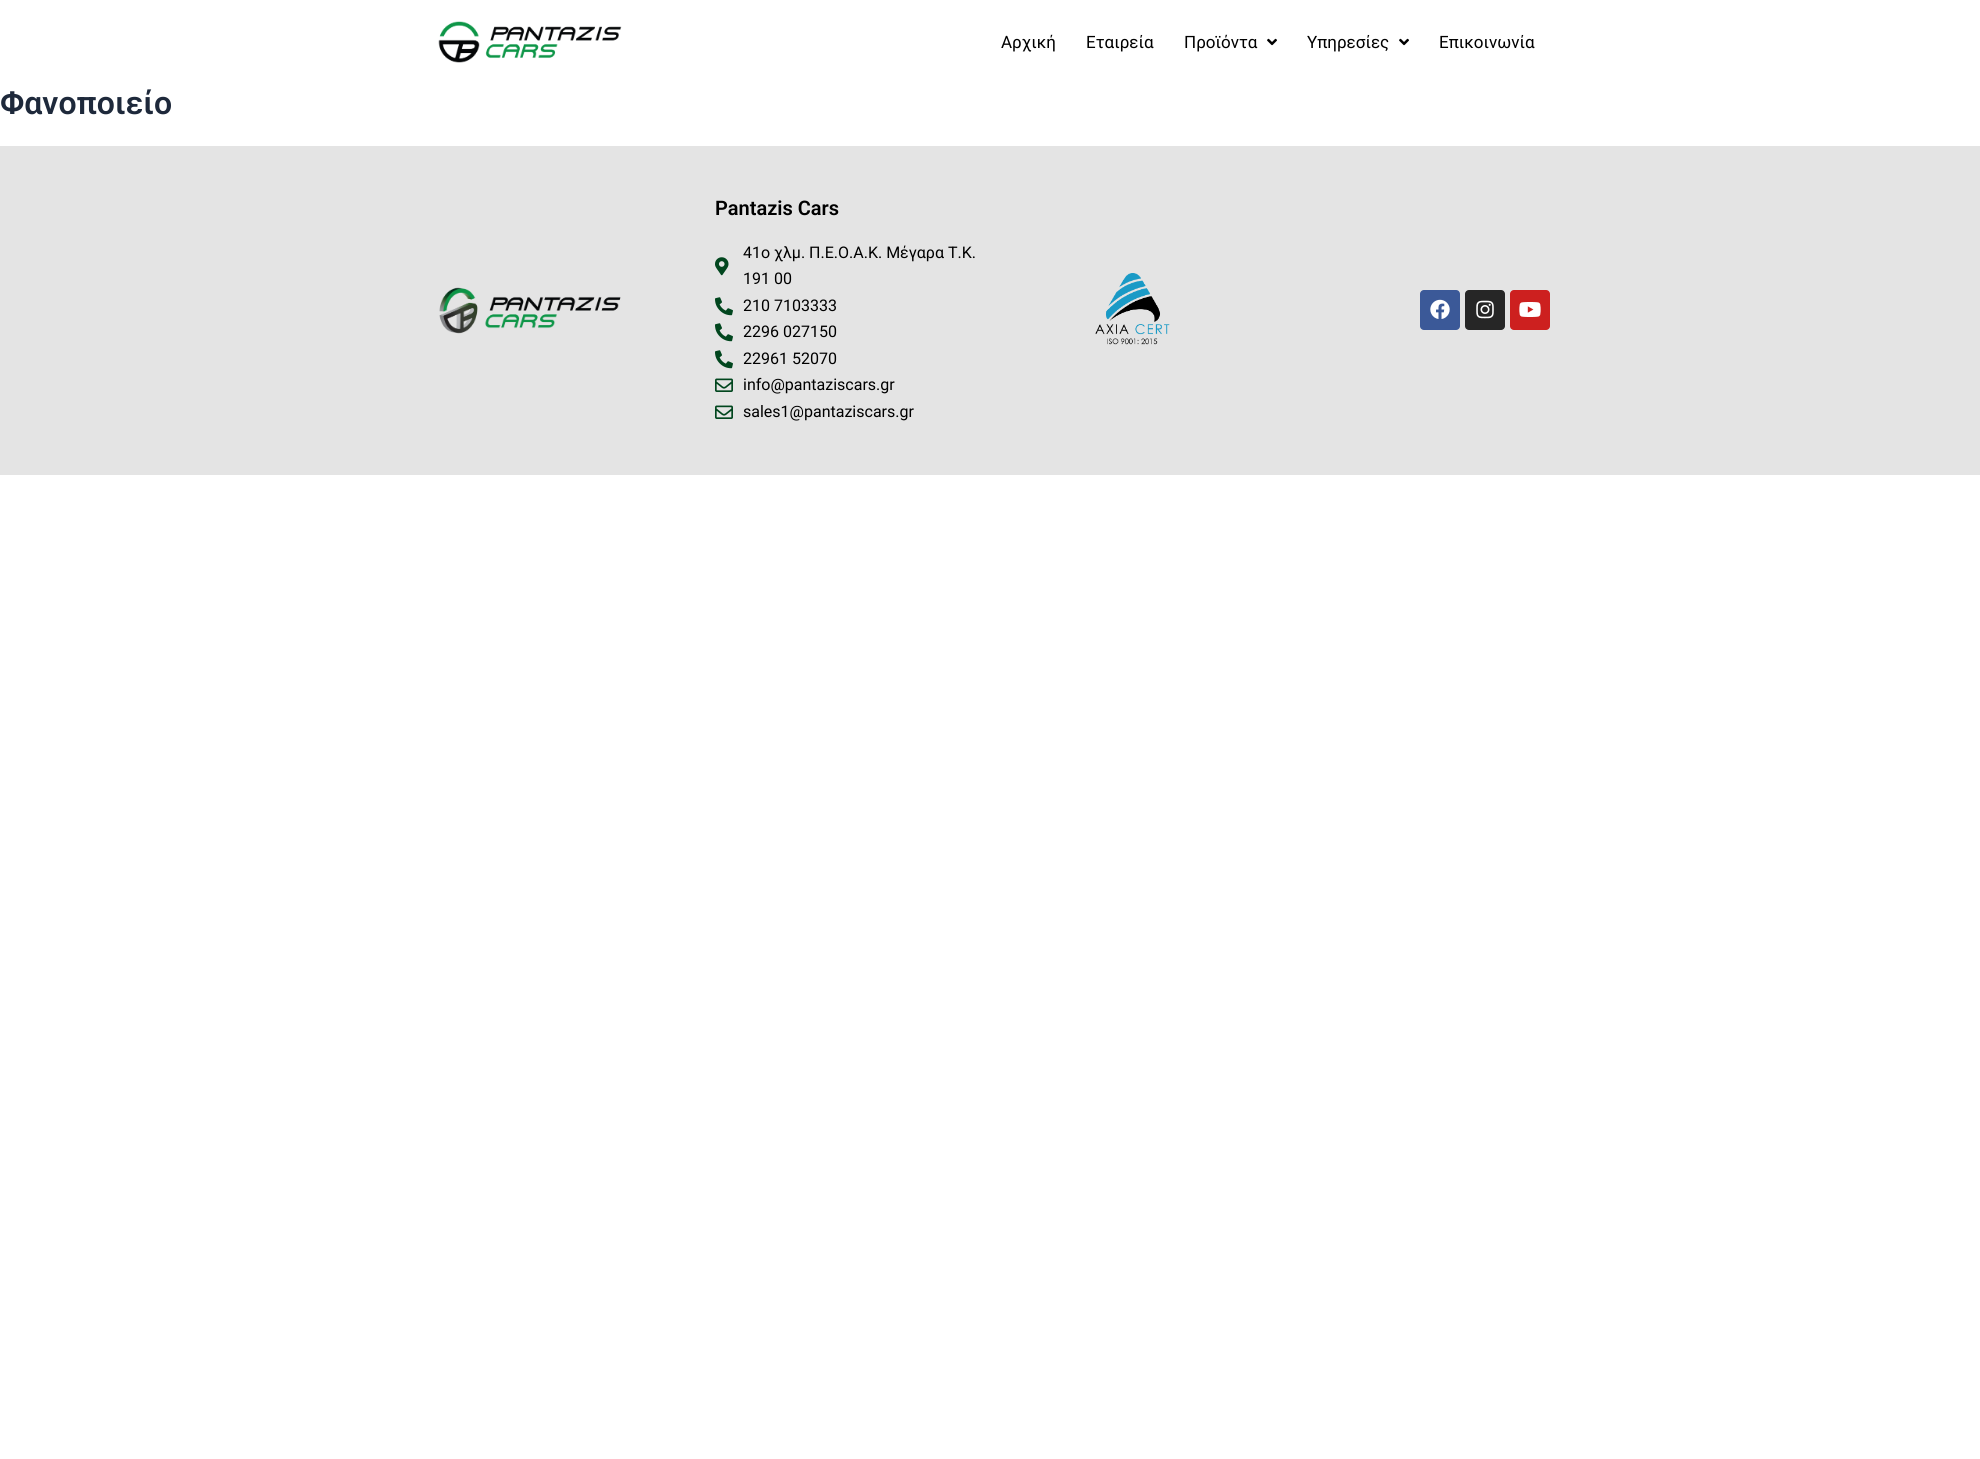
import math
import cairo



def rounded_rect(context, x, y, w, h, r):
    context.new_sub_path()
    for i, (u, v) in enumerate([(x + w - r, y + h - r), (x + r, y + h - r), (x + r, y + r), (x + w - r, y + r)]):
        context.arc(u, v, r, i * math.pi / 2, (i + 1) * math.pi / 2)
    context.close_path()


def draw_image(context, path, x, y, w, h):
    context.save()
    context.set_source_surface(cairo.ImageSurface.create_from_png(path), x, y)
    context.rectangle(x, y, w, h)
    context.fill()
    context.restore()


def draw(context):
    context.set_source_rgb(1, 1, 1)
    context.paint()
    draw_image(context, "images/1.png", 438, 21, 184, 42)
    draw_image(context, "images/2.png", 1267, 38, 10, 8)
    draw_image(context, "images/2.png", 1399, 38, 10, 8)
    context.set_source_rgb(228 / 255, 228 / 255, 228 / 255)
    context.rectangle(0, 146, 1980, 329)
    context.fill()
    draw_image(context, "images/3.png", 439, 287, 182, 47)
    draw_image(context, "images/4.png", 715, 257, 14, 19)
    draw_image(context, "images/5.png", 715, 297, 18, 19)
    draw_image(context, "images/5.png", 715, 323, 18, 19)
    draw_image(context, "images/5.png", 715, 350, 18, 19)
    draw_image(context, "images/6.png", 715, 378, 18, 14)
    draw_image(context, "images/6.png", 715, 405, 18, 14)
    draw_image(context, "images/7.png", 1095, 273, 75, 72)
    context.set_source_rgb(59 / 255, 89 / 255, 152 / 255)
    rounded_rect(context, 1420, 290, 40, 40, 4)
    context.fill()
    draw_image(context, "images/8.png", 1430, 299, 20, 20)
    context.set_source_rgb(38 / 255, 38 / 255, 38 / 255)
    rounded_rect(context, 1465, 290, 40, 40, 4)
    context.fill()
    draw_image(context, "images/9.png", 1476, 300, 18, 19)
    context.set_source_rgb(205 / 255, 32 / 255, 31 / 255)
    rounded_rect(context, 1510, 290, 40, 40, 4)
    context.fill()
    draw_image(context, "images/10.png", 1519, 302, 22, 15)
    context.select_font_face("Roboto")
    context.set_font_size(17)
    context.set_source_rgb(0, 0, 0)
    context.move_to(1001, 48)
    context.show_text("Αρχική")
    context.move_to(1086, 48)
    context.show_text("Εταιρεία")
    context.move_to(1184, 48)
    context.show_text("Προϊόντα")
    context.move_to(1307, 48)
    context.show_text("Υπηρεσίες")
    context.move_to(1439, 48)
    context.show_text("Επικοινωνία")
    context.select_font_face("Roboto SemiBold")
    context.set_font_size(32)
    context.set_source_rgb(30 / 255, 41 / 255, 59 / 255)
    context.move_to(0, 114)
    context.show_text("Φανοποιείο")
    context.set_font_size(20)
    context.set_source_rgb(0, 0, 0)
    context.move_to(715, 215)
    context.show_text("Pantazis Cars")
    context.select_font_face("Roboto")
    context.set_font_size(16)
    context.move_to(743, 258)
    context.show_text("41ο χλμ. Π.Ε.Ο.Α.Κ. Μέγαρα Τ.Κ.")
    context.move_to(743, 284)
    context.show_text("191 00")
    context.move_to(743, 311)
    context.show_text("210 7103333")
    context.move_to(743, 337)
    context.show_text("2296 027150")
    context.move_to(743, 364)
    context.show_text("22961 52070")
    context.move_to(743, 390)
    context.show_text("info@pantaziscars.gr")
    context.move_to(743, 417)
    context.show_text("sales1@pantaziscars.gr")


surface = cairo.ImageSurface(cairo.Format.RGB24, 1980, 1459)
context = cairo.Context(surface)
options = cairo.FontOptions()
options.set_hint_metrics(cairo.HintMetrics.OFF)
options.set_hint_style(cairo.HintStyle.NONE)
context.set_font_options(options)
context.set_miter_limit(4)
draw(context)
surface.write_to_png("out.png")
